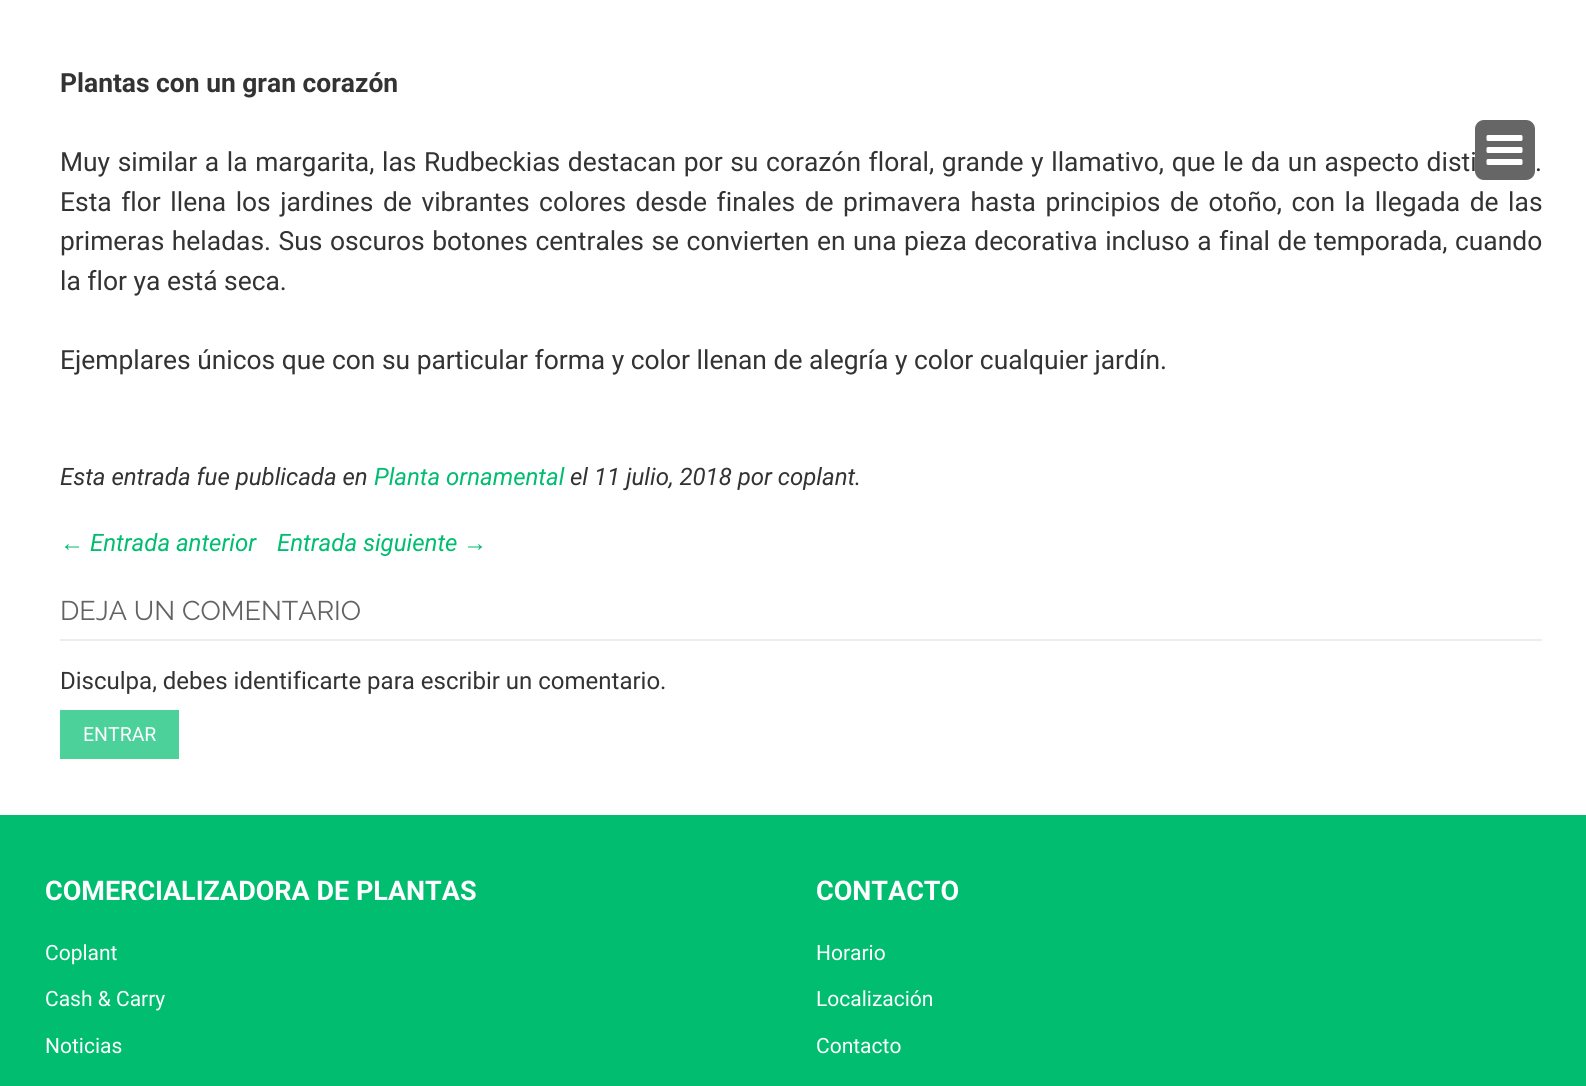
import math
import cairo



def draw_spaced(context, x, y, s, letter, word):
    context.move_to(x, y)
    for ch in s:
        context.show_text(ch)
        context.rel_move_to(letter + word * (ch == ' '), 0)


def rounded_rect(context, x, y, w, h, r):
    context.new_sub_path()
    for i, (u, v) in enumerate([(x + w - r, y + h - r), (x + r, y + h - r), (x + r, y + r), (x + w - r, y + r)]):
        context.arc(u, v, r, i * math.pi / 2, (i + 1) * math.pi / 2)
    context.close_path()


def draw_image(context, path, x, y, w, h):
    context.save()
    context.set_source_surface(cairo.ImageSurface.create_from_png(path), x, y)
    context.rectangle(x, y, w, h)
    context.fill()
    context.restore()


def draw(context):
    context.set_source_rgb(1, 1, 1)
    context.paint()
    context.set_source_rgb(237 / 255, 237 / 255, 237 / 255)
    context.rectangle(60, 639, 1482, 2)
    context.fill()
    context.set_source_rgb(76 / 255, 209 / 255, 155 / 255)
    context.rectangle(60, 710, 119, 49)
    context.fill()
    context.set_source_rgb(0, 189 / 255, 112 / 255)
    context.rectangle(0, 815, 1586, 271)
    context.fill()
    context.select_font_face("Roboto", cairo.FontSlant.NORMAL, cairo.FontWeight.BOLD)
    context.set_font_size(26.4)
    context.set_source_rgb(51 / 255, 51 / 255, 51 / 255)
    context.move_to(60, 92)
    context.show_text("Plantas con un gran corazón")
    context.select_font_face("Roboto")
    draw_spaced(context, 60, 171, "Muy similar a la margarita, las Rudbeckias destacan por su corazón floral, grande y llamativo, que le da un aspecto disti", 0, 1.1)
    draw_spaced(context, 1535, 171, ".", 0, 1.1)
    draw_spaced(context, 60, 211, "Esta flor llena los jardines de vibrantes colores desde finales de primavera hasta principios de otoño, con la llegada de las", 0, 3)
    draw_spaced(context, 60, 250, "primeras heladas. Sus oscuros botones centrales se convierten en una pieza decorativa incluso a final de temporada, cuando", 0, 1)
    context.move_to(60, 290)
    context.show_text("la flor ya está seca.")
    context.move_to(60, 369)
    context.show_text("Ejemplares únicos que con su particular forma y color llenan de alegría y color cualquier jardín.")
    context.select_font_face("Roboto", cairo.FontSlant.ITALIC)
    context.set_font_size(24)
    context.move_to(60, 485)
    context.show_text("Esta entrada fue publicada en")
    context.set_source_rgb(0, 189 / 255, 112 / 255)
    context.move_to(374, 485)
    context.show_text("Planta ornamental")
    context.set_source_rgb(51 / 255, 51 / 255, 51 / 255)
    context.move_to(570, 485)
    context.show_text("el 11 julio, 2018 por coplant.")
    context.select_font_face("Liberation Sans", cairo.FontSlant.ITALIC)
    context.set_source_rgb(0, 189 / 255, 112 / 255)
    context.move_to(60, 551)
    context.show_text("←")
    context.select_font_face("Roboto", cairo.FontSlant.ITALIC)
    context.move_to(90, 551)
    context.show_text("Entrada anterior")
    context.move_to(277, 551)
    context.show_text("Entrada siguiente")
    context.select_font_face("Liberation Sans", cairo.FontSlant.ITALIC)
    context.move_to(463, 551)
    context.show_text("→")
    context.select_font_face("Raleway")
    context.set_font_size(27)
    context.set_source_rgb(99 / 255, 99 / 255, 99 / 255)
    context.move_to(60, 620)
    context.show_text("DEJA UN COMENTARIO")
    context.select_font_face("Roboto")
    context.set_font_size(24)
    context.set_source_rgb(51 / 255, 51 / 255, 51 / 255)
    context.move_to(60, 689)
    context.show_text("Disculpa, debes identificarte para escribir un comentario.")
    context.set_font_size(19.5)
    context.set_source_rgb(1, 1, 1)
    context.move_to(83, 741)
    context.show_text("ENTRAR")
    context.set_source_rgb(102 / 255, 102 / 255, 102 / 255)
    rounded_rect(context, 1475, 120, 60, 60, 9)
    context.fill()
    draw_image(context, "images/1.png", 1486, 135, 37, 30)
    context.select_font_face("Roboto", cairo.FontSlant.NORMAL, cairo.FontWeight.BOLD)
    context.set_font_size(27)
    context.set_source_rgb(1, 1, 1)
    context.move_to(45, 900)
    context.show_text("COMERCIALIZADORA DE PLANTAS")
    context.select_font_face("Roboto")
    context.set_font_size(21)
    context.move_to(45, 960)
    context.show_text("Coplant")
    context.move_to(45, 1006)
    context.show_text("Cash & Carry")
    context.move_to(45, 1053)
    context.show_text("Noticias")
    context.select_font_face("Roboto", cairo.FontSlant.NORMAL, cairo.FontWeight.BOLD)
    context.set_font_size(27)
    context.move_to(816, 900)
    context.show_text("CONTACTO")
    context.select_font_face("Roboto")
    context.set_font_size(21)
    context.move_to(816, 960)
    context.show_text("Horario")
    context.move_to(816, 1006)
    context.show_text("Localización")
    context.move_to(816, 1053)
    context.show_text("Contacto")


surface = cairo.ImageSurface(cairo.Format.RGB24, 1586, 1086)
context = cairo.Context(surface)
options = cairo.FontOptions()
options.set_hint_metrics(cairo.HintMetrics.OFF)
options.set_hint_style(cairo.HintStyle.NONE)
context.set_font_options(options)
context.set_miter_limit(4)
draw(context)
surface.write_to_png("out.png")
